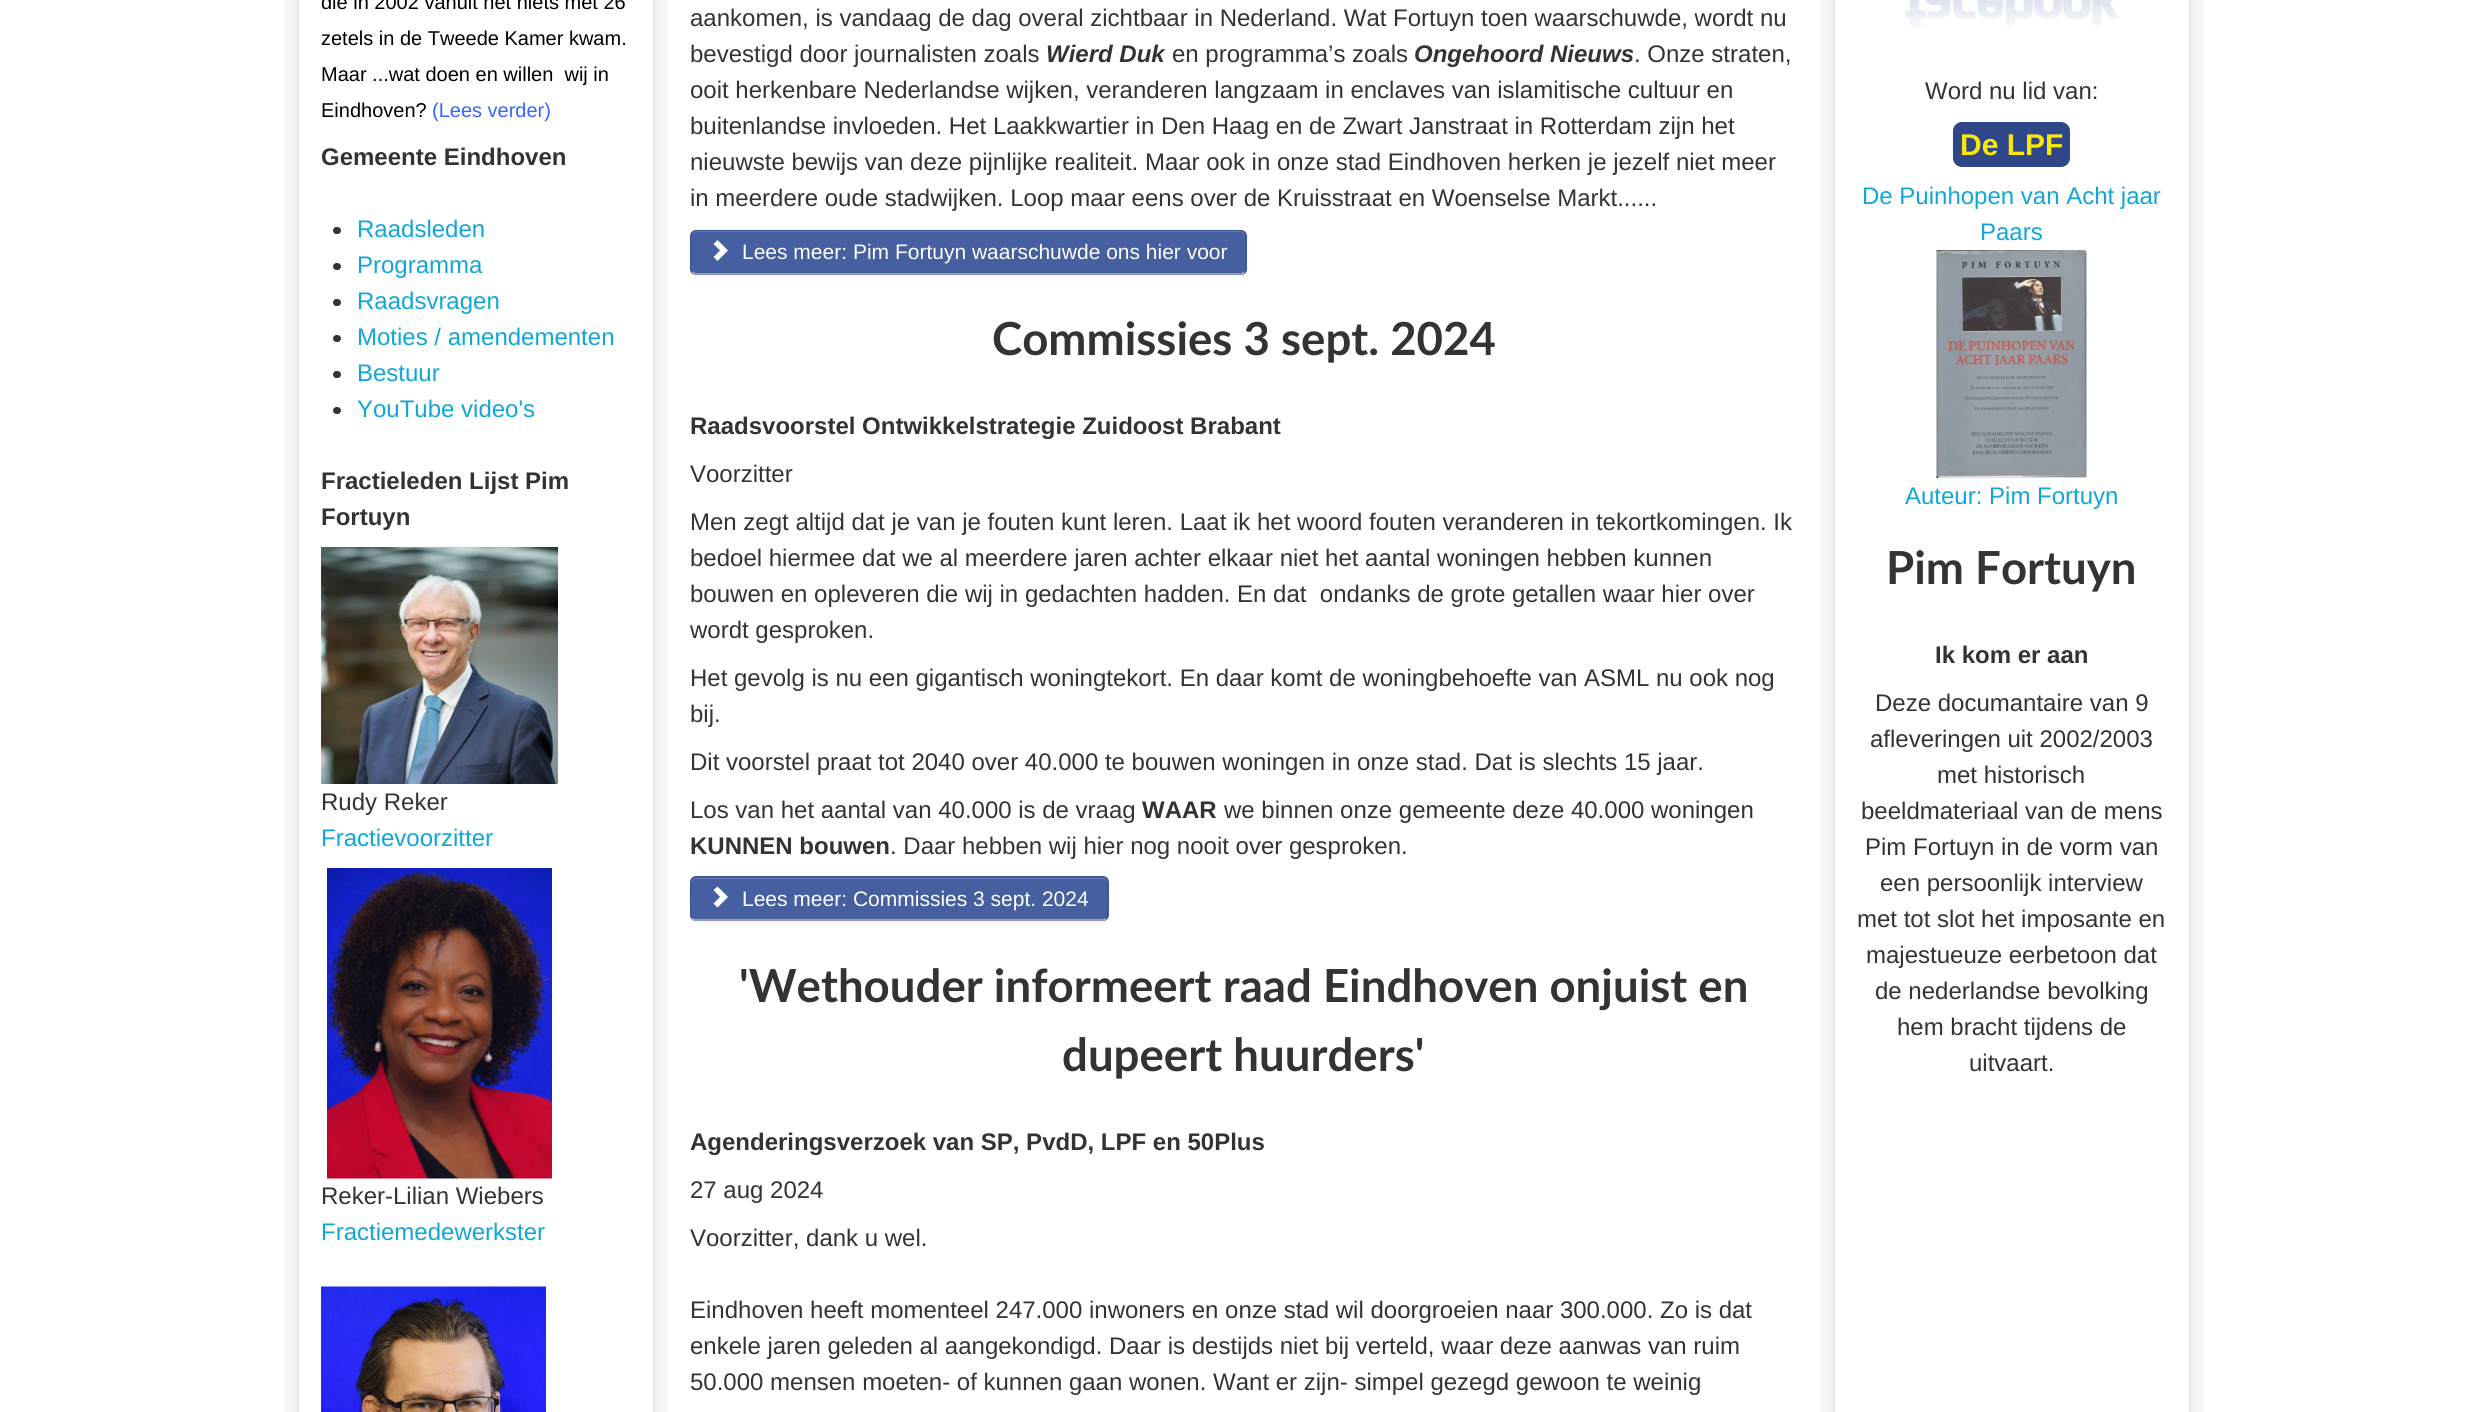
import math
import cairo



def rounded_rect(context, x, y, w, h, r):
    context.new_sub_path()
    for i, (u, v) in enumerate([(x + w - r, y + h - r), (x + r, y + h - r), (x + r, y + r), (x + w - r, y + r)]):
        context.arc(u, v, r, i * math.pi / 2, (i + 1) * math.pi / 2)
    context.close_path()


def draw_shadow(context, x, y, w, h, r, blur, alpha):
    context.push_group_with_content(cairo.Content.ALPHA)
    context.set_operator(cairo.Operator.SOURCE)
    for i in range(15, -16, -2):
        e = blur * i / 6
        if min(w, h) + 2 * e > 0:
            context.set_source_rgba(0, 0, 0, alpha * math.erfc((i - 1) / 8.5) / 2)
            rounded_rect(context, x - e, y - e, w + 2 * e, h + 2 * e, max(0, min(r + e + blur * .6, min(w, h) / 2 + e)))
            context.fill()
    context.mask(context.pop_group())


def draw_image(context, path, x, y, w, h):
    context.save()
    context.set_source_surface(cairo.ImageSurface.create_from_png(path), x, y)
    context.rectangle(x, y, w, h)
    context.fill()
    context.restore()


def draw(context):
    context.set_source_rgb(1, 1, 1)
    context.paint()
    context.set_source_rgb(245 / 255, 245 / 255, 245 / 255)
    context.rectangle(284, 0, 1920, 1412)
    context.fill()
    context.set_source_rgb(0, 0, 0)
    draw_shadow(context, 299, -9, 354, 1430, 0, 3, 0.15)
    context.set_source_rgb(1, 1, 1)
    context.rectangle(299, 0, 354, 1412)
    context.fill()
    context.set_source_rgb(51 / 255, 51 / 255, 51 / 255)
    rounded_rect(context, 333, 227, 8, 7, 3.5)
    context.fill()
    rounded_rect(context, 333, 263, 8, 7, 3.5)
    context.fill()
    rounded_rect(context, 333, 299, 8, 7, 3.5)
    context.fill()
    rounded_rect(context, 333, 335, 8, 7, 3.5)
    context.fill()
    rounded_rect(context, 333, 371, 8, 7, 3.5)
    context.fill()
    rounded_rect(context, 333, 407, 8, 7, 3.5)
    context.fill()
    draw_image(context, "images/1.png", 321, 547, 237, 237)
    draw_image(context, "images/2.png", 327, 868, 225, 311)
    draw_image(context, "images/3.png", 321, 1286, 225, 126)
    context.set_source_rgb(1, 1, 1)
    context.rectangle(668, 0, 1152, 1412)
    context.fill()
    context.set_source_rgb(0, 0, 0)
    draw_shadow(context, 690, 231, 557, 45, 6, 1.5, 0.05)
    context.set_source_rgb(69 / 255, 95 / 255, 160 / 255)
    rounded_rect(context, 690, 230, 557, 45, 6)
    context.fill()
    context.set_source_rgb(106 / 255, 127 / 255, 179 / 255)
    context.new_path()
    context.move_to(696, 232)
    context.line_to(1240, 232)
    context.curve_to(1243, 232, 1245, 235, 1245, 237)
    context.curve_to(1245, 234, 1243, 231, 1240, 231)
    context.line_to(697, 231)
    context.curve_to(694, 231, 692, 234, 692, 237)
    context.curve_to(692, 235, 694, 232, 696, 232)
    context.close_path()
    context.fill()
    context.new_path()
    context.move_to(1244, 272)
    context.curve_to(1243, 273, 1242, 274, 1240.5, 274)
    context.line_to(696, 274)
    context.curve_to(694.5, 274, 693.5, 273, 692.5, 272)
    context.set_source_rgb(179 / 255, 179 / 255, 179 / 255)
    context.set_line_width(1.5)
    context.stroke()
    context.new_path()
    context.move_to(692.5, 272)
    context.curve_to(690, 270, 691, 266, 691, 263)
    context.line_to(691, 241)
    context.curve_to(691, 237.5, 690, 232, 694.5, 230.5)
    context.line_to(1242, 230.5)
    context.curve_to(1246.5, 232, 1246, 237.5, 1246, 241)
    context.line_to(1246, 263)
    context.curve_to(1246, 266, 1246.5, 270, 1244, 272)
    context.set_source_rgba(0, 0, 0, 0.1)
    context.stroke()
    context.set_source_rgb(1, 1, 1)
    context.new_path()
    context.move_to(717.5, 240)
    context.line_to(728, 250.5)
    context.line_to(717.5, 261)
    context.line_to(713.5, 257)
    context.line_to(720, 250.5)
    context.line_to(713.5, 244)
    context.close_path()
    context.fill()
    context.set_source_rgb(0, 0, 0)
    draw_shadow(context, 690, 878, 419, 45, 6, 1.5, 0.05)
    context.set_source_rgb(69 / 255, 95 / 255, 160 / 255)
    rounded_rect(context, 690, 876, 419, 45, 6)
    context.fill()
    context.set_source_rgb(106 / 255, 127 / 255, 179 / 255)
    context.new_path()
    context.move_to(696, 879)
    context.line_to(1102, 879)
    context.curve_to(1105, 879, 1107, 881, 1107, 884)
    context.line_to(1107, 883)
    context.curve_to(1107, 880, 1105, 878, 1102, 878)
    context.line_to(697, 878)
    context.curve_to(694, 878, 692, 880, 692, 883)
    context.line_to(692, 884)
    context.curve_to(692, 881, 694, 879, 696, 879)
    context.close_path()
    context.fill()
    context.new_path()
    context.move_to(1106, 918.5)
    context.curve_to(1105, 919.5, 1104, 920, 1102.5, 920)
    context.line_to(696, 920)
    context.curve_to(694.5, 920, 693.5, 919.5, 692.5, 918.5)
    context.set_source_rgb(179 / 255, 179 / 255, 179 / 255)
    context.stroke()
    context.new_path()
    context.move_to(692.5, 918.5)
    context.line_to(691, 916)
    context.curve_to(690.5, 913, 690, 881.5, 691.5, 879.5)
    context.curve_to(692.5, 878, 694, 877, 696, 877)
    context.line_to(1102.5, 877)
    context.curve_to(1104.5, 877, 1106, 878, 1107, 879.5)
    context.curve_to(1108.5, 881.5, 1108, 913, 1107.5, 916)
    context.line_to(1106, 918.5)
    context.set_source_rgba(0, 0, 0, 0.1)
    context.stroke()
    context.set_source_rgb(1, 1, 1)
    context.new_path()
    context.move_to(717.5, 886.5)
    context.line_to(728, 897)
    context.line_to(717.5, 907.5)
    context.line_to(713.5, 903.5)
    context.line_to(720, 897)
    context.line_to(713.5, 890)
    context.close_path()
    context.fill()
    context.set_source_rgb(0, 0, 0)
    draw_shadow(context, 1835, -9, 354, 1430, 0, 3, 0.15)
    context.set_source_rgb(1, 1, 1)
    context.rectangle(1835, 0, 354, 1412)
    context.fill()
    draw_image(context, "images/4.png", 1905, 0, 214, 28)
    context.set_source_rgb(47 / 255, 70 / 255, 137 / 255)
    rounded_rect(context, 1953, 122, 117, 45, 9)
    context.fill()
    draw_image(context, "images/5.png", 1936, 250, 151, 228)
    context.select_font_face("Liberation Sans")
    context.set_font_size(20)
    context.set_source_rgb(0, 0, 0)
    context.move_to(321, 9)
    context.show_text("die in 2002 vanuit het niets met 26")
    context.move_to(321, 45)
    context.show_text("zetels in de Tweede Kamer kwam.")
    context.move_to(321, 81)
    context.show_text("Maar ...wat doen en willen  wij in")
    context.move_to(321, 117)
    context.show_text("Eindhoven?")
    context.set_source_rgb(51 / 255, 102 / 255, 1)
    context.move_to(432, 117)
    context.show_text("(Lees verder)")
    context.select_font_face("Liberation Sans", cairo.FontSlant.NORMAL, cairo.FontWeight.BOLD)
    context.set_font_size(24)
    context.set_source_rgb(51 / 255, 51 / 255, 51 / 255)
    context.move_to(321, 165)
    context.show_text("Gemeente Eindhoven")
    context.select_font_face("Liberation Sans")
    context.set_source_rgb(17 / 255, 166 / 255, 215 / 255)
    context.move_to(357, 237)
    context.show_text("Raadsleden")
    context.move_to(357, 273)
    context.show_text("Programma")
    context.move_to(357, 309)
    context.show_text("Raadsvragen")
    context.move_to(357, 345)
    context.show_text("Moties / amendementen")
    context.move_to(357, 381)
    context.show_text("Bestuur")
    context.move_to(357, 417)
    context.show_text("YouTube video's")
    context.select_font_face("Liberation Sans", cairo.FontSlant.NORMAL, cairo.FontWeight.BOLD)
    context.set_source_rgb(51 / 255, 51 / 255, 51 / 255)
    context.move_to(321, 489)
    context.show_text("Fractieleden Lijst Pim")
    context.move_to(321, 525)
    context.show_text("Fortuyn")
    context.select_font_face("Liberation Sans")
    context.move_to(321, 810)
    context.show_text("Rudy Reker")
    context.set_source_rgb(17 / 255, 166 / 255, 215 / 255)
    context.move_to(321, 846)
    context.show_text("Fractievoorzitter")
    context.set_source_rgb(51 / 255, 51 / 255, 51 / 255)
    context.move_to(321, 1204)
    context.show_text("Reker-Lilian Wiebers")
    context.set_source_rgb(17 / 255, 166 / 255, 215 / 255)
    context.move_to(321, 1240)
    context.show_text("Fractiemedewerkster")
    context.set_source_rgb(51 / 255, 51 / 255, 51 / 255)
    context.move_to(690, 26)
    context.show_text("aankomen, is vandaag de dag overal zichtbaar in Nederland. Wat Fortuyn toen waarschuwde, wordt nu")
    context.move_to(690, 62)
    context.show_text("bevestigd door journalisten zoals")
    context.select_font_face("Liberation Sans", cairo.FontSlant.ITALIC, cairo.FontWeight.BOLD)
    context.move_to(1046, 62)
    context.show_text("Wierd Duk")
    context.select_font_face("Liberation Sans")
    context.move_to(1172, 62)
    context.show_text("en programma’s zoals")
    context.select_font_face("Liberation Sans", cairo.FontSlant.ITALIC, cairo.FontWeight.BOLD)
    context.move_to(1414, 62)
    context.show_text("Ongehoord Nieuws")
    context.select_font_face("Liberation Sans")
    context.move_to(1634, 62)
    context.show_text(". Onze straten,")
    context.move_to(690, 98)
    context.show_text("ooit herkenbare Nederlandse wijken, veranderen langzaam in enclaves van islamitische cultuur en")
    context.move_to(690, 134)
    context.show_text("buitenlandse invloeden. Het Laakkwartier in Den Haag en de Zwart Janstraat in Rotterdam zijn het")
    context.move_to(690, 170)
    context.show_text("nieuwste bewijs van deze pijnlijke realiteit. Maar ook in onze stad Eindhoven herken je jezelf niet meer")
    context.move_to(690, 206)
    context.show_text("in meerdere oude stadwijken. Loop maar eens over de Kruisstraat en Woenselse Markt......")
    context.set_font_size(21)
    context.set_source_rgb(1, 1, 1)
    context.move_to(742, 259)
    context.show_text("Lees meer: Pim Fortuyn waarschuwde ons hier voor")
    context.select_font_face("Lato", cairo.FontSlant.NORMAL, cairo.FontWeight.BOLD)
    context.set_font_size(45.6)
    context.set_source_rgb(51 / 255, 51 / 255, 51 / 255)
    context.move_to(992, 355)
    context.show_text("Commissies 3 sept. 2024")
    context.select_font_face("Liberation Sans", cairo.FontSlant.NORMAL, cairo.FontWeight.BOLD)
    context.set_font_size(24)
    context.move_to(690, 434)
    context.show_text("Raadsvoorstel Ontwikkelstrategie Zuidoost Brabant")
    context.select_font_face("Liberation Sans")
    context.move_to(690, 482)
    context.show_text("Voorzitter")
    context.move_to(690, 530)
    context.show_text("Men zegt altijd dat je van je fouten kunt leren. Laat ik het woord fouten veranderen in tekortkomingen. Ik")
    context.move_to(690, 566)
    context.show_text("bedoel hiermee dat we al meerdere jaren achter elkaar niet het aantal woningen hebben kunnen")
    context.move_to(690, 602)
    context.show_text("bouwen en opleveren die wij in gedachten hadden. En dat  ondanks de grote getallen waar hier over")
    context.move_to(690, 638)
    context.show_text("wordt gesproken.")
    context.move_to(690, 686)
    context.show_text("Het gevolg is nu een gigantisch woningtekort. En daar komt de woningbehoefte van ASML nu ook nog")
    context.move_to(690, 722)
    context.show_text("bij.")
    context.move_to(690, 770)
    context.show_text("Dit voorstel praat tot 2040 over 40.000 te bouwen woningen in onze stad. Dat is slechts 15 jaar.")
    context.move_to(690, 818)
    context.show_text("Los van het aantal van 40.000 is de vraag")
    context.select_font_face("Liberation Sans", cairo.FontSlant.NORMAL, cairo.FontWeight.BOLD)
    context.move_to(1142, 818)
    context.show_text("WAAR")
    context.select_font_face("Liberation Sans")
    context.move_to(1224, 818)
    context.show_text("we binnen onze gemeente deze 40.000 woningen")
    context.select_font_face("Liberation Sans", cairo.FontSlant.NORMAL, cairo.FontWeight.BOLD)
    context.move_to(690, 854)
    context.show_text("KUNNEN bouwen")
    context.select_font_face("Liberation Sans")
    context.move_to(890, 854)
    context.show_text(". Daar hebben wij hier nog nooit over gesproken.")
    context.set_font_size(21)
    context.set_source_rgb(1, 1, 1)
    context.move_to(742, 906)
    context.show_text("Lees meer: Commissies 3 sept. 2024")
    context.select_font_face("Lato", cairo.FontSlant.NORMAL, cairo.FontWeight.BOLD)
    context.set_font_size(45.6)
    context.set_source_rgb(51 / 255, 51 / 255, 51 / 255)
    context.move_to(739, 1002)
    context.show_text("'Wethouder informeert raad Eindhoven onjuist en")
    context.move_to(1062, 1071)
    context.show_text("dupeert huurders'")
    context.select_font_face("Liberation Sans", cairo.FontSlant.NORMAL, cairo.FontWeight.BOLD)
    context.set_font_size(24)
    context.move_to(690, 1150)
    context.show_text("Agenderingsverzoek van SP, PvdD, LPF en 50Plus")
    context.select_font_face("Liberation Sans")
    context.move_to(690, 1198)
    context.show_text("27 aug 2024")
    context.move_to(690, 1246)
    context.show_text("Voorzitter, dank u wel.")
    context.move_to(690, 1318)
    context.show_text("Eindhoven heeft momenteel 247.000 inwoners en onze stad wil doorgroeien naar 300.000. Zo is dat")
    context.move_to(690, 1354)
    context.show_text("enkele jaren geleden al aangekondigd. Daar is destijds niet bij verteld, waar deze aanwas van ruim")
    context.move_to(690, 1390)
    context.show_text("50.000 mensen moeten- of kunnen gaan wonen. Want er zijn- simpel gezegd gewoon te weinig")
    context.move_to(1925, 99)
    context.show_text("Word nu lid van:")
    context.select_font_face("Liberation Sans", cairo.FontSlant.NORMAL, cairo.FontWeight.BOLD)
    context.set_font_size(30)
    context.set_source_rgb(250 / 255, 231 / 255, 4 / 255)
    context.move_to(1960, 155)
    context.show_text("De LPF")
    context.select_font_face("Liberation Sans")
    context.set_font_size(24)
    context.set_source_rgb(17 / 255, 166 / 255, 215 / 255)
    context.move_to(1862, 204)
    context.show_text("De Puinhopen van Acht jaar")
    context.move_to(1980, 240)
    context.show_text("Paars")
    context.move_to(1905, 504)
    context.show_text("Auteur: Pim Fortuyn")
    context.select_font_face("Lato", cairo.FontSlant.NORMAL, cairo.FontWeight.BOLD)
    context.set_font_size(45.6)
    context.set_source_rgb(51 / 255, 51 / 255, 51 / 255)
    context.move_to(1886, 584)
    context.show_text("Pim Fortuyn")
    context.select_font_face("Liberation Sans", cairo.FontSlant.NORMAL, cairo.FontWeight.BOLD)
    context.set_font_size(24)
    context.move_to(1935, 663)
    context.show_text("Ik kom er aan")
    context.select_font_face("Liberation Sans")
    context.move_to(1875, 711)
    context.show_text("Deze documantaire van 9")
    context.move_to(1870, 747)
    context.show_text("afleveringen uit 2002/2003")
    context.move_to(1937, 783)
    context.show_text("met historisch")
    context.move_to(1861, 819)
    context.show_text("beeldmateriaal van de mens")
    context.move_to(1865, 855)
    context.show_text("Pim Fortuyn in de vorm van")
    context.move_to(1880, 891)
    context.show_text("een persoonlijk interview")
    context.move_to(1857, 927)
    context.show_text("met tot slot het imposante en")
    context.move_to(1866, 963)
    context.show_text("majestueuze eerbetoon dat")
    context.move_to(1875, 999)
    context.show_text("de nederlandse bevolking")
    context.move_to(1897, 1035)
    context.show_text("hem bracht tijdens de")
    context.move_to(1969, 1071)
    context.show_text("uitvaart.")


surface = cairo.ImageSurface(cairo.Format.RGB24, 2487, 1412)
context = cairo.Context(surface)
options = cairo.FontOptions()
options.set_hint_metrics(cairo.HintMetrics.OFF)
options.set_hint_style(cairo.HintStyle.NONE)
context.set_font_options(options)
context.set_miter_limit(4)
draw(context)
surface.write_to_png("out.png")
